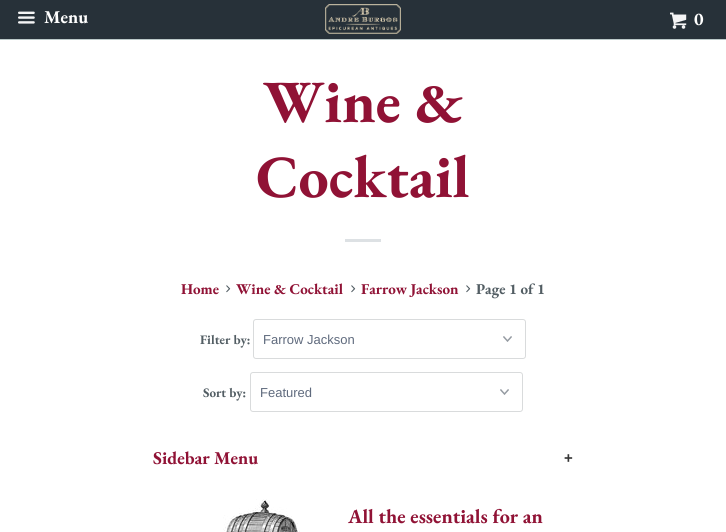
import math
import cairo



def rounded_rect(context, x, y, w, h, r):
    context.new_sub_path()
    for i, (u, v) in enumerate([(x + w - r, y + h - r), (x + r, y + h - r), (x + r, y + r), (x + w - r, y + r)]):
        context.arc(u, v, r, i * math.pi / 2, (i + 1) * math.pi / 2)
    context.close_path()


def draw_image(context, path, x, y, w, h):
    context.save()
    context.set_source_surface(cairo.ImageSurface.create_from_png(path), x, y)
    context.rectangle(x, y, w, h)
    context.fill()
    context.restore()


def draw(context):
    context.set_source_rgb(1, 1, 1)
    context.paint()
    context.set_source_rgb(39 / 255, 49 / 255, 57 / 255)
    context.rectangle(0, 0, 726, 39)
    context.fill()
    context.set_source_rgb(188 / 255, 201 / 255, 201 / 255)
    context.rectangle(0, 39, 726, 1)
    context.fill()
    draw_image(context, "images/1.png", 18, 11, 17, 13)
    draw_image(context, "images/2.png", 325, 4, 76, 30)
    draw_image(context, "images/3.png", 670, 12, 17, 17)
    context.set_source_rgb(221 / 255, 225 / 255, 228 / 255)
    context.rectangle(345, 239, 36, 3)
    context.fill()
    draw_image(context, "images/4.png", 226, 285, 5, 8)
    draw_image(context, "images/4.png", 351, 285, 5, 8)
    draw_image(context, "images/4.png", 466, 285, 5, 8)
    draw_image(context, "images/5.png", 503, 336, 9, 6)
    rounded_rect(context, 253.5, 319.5, 272, 39, 2.5)
    context.set_source_rgb(217 / 255, 219 / 255, 220 / 255)
    context.set_line_width(1)
    context.stroke()
    draw_image(context, "images/5.png", 500, 389, 9, 6)
    rounded_rect(context, 250.5, 372.5, 272, 39, 2.5)
    context.stroke()
    draw_image(context, "images/6.png", 223, 499, 77, 33)
    context.select_font_face("EB Garamond", cairo.FontSlant.NORMAL, cairo.FontWeight.BOLD)
    context.set_font_size(18)
    context.set_source_rgb(1, 1, 1)
    context.move_to(44, 23)
    context.show_text("Menu")
    context.move_to(694, 25)
    context.show_text("0")
    context.set_font_size(60)
    context.set_source_rgb(144 / 255, 18 / 255, 53 / 255)
    context.move_to(263, 122)
    context.show_text("Wine &")
    context.move_to(256, 197)
    context.show_text("Cocktail")
    context.set_font_size(15)
    context.move_to(181, 294)
    context.show_text("Home")
    context.move_to(236, 294)
    context.show_text("Wine & Cocktail")
    context.move_to(361, 294)
    context.show_text("Farrow Jackson")
    context.set_source_rgb(82 / 255, 93 / 255, 99 / 255)
    context.move_to(476, 294)
    context.show_text("Page 1 of 1")
    context.set_font_size(13)
    context.move_to(200, 344)
    context.show_text("Filter by:")
    context.select_font_face("Liberation Sans")
    context.set_source_rgb(95 / 255, 106 / 255, 125 / 255)
    context.move_to(263, 344)
    context.show_text("Farrow Jackson")
    context.select_font_face("EB Garamond", cairo.FontSlant.NORMAL, cairo.FontWeight.BOLD)
    context.set_source_rgb(82 / 255, 93 / 255, 99 / 255)
    context.move_to(203, 397)
    context.show_text("Sort by:")
    context.select_font_face("Liberation Sans")
    context.set_source_rgb(95 / 255, 106 / 255, 125 / 255)
    context.move_to(260, 397)
    context.show_text("Featured")
    context.select_font_face("EB Garamond", cairo.FontSlant.NORMAL, cairo.FontWeight.BOLD)
    context.set_font_size(18)
    context.set_source_rgb(144 / 255, 18 / 255, 53 / 255)
    context.move_to(153, 464)
    context.show_text("Sidebar Menu")
    context.select_font_face("Liberation Sans", cairo.FontSlant.NORMAL, cairo.FontWeight.BOLD)
    context.set_font_size(15)
    context.set_source_rgb(54 / 255, 54 / 255, 54 / 255)
    context.move_to(564, 463)
    context.show_text("+")
    context.select_font_face("EB Garamond", cairo.FontSlant.NORMAL, cairo.FontWeight.BOLD)
    context.set_font_size(20)
    context.set_source_rgb(144 / 255, 18 / 255, 53 / 255)
    context.move_to(348, 523)
    context.show_text("All the essentials for an")


surface = cairo.ImageSurface(cairo.Format.RGB24, 726, 532)
context = cairo.Context(surface)
options = cairo.FontOptions()
options.set_hint_metrics(cairo.HintMetrics.OFF)
options.set_hint_style(cairo.HintStyle.NONE)
context.set_font_options(options)
context.set_miter_limit(4)
draw(context)
surface.write_to_png("out.png")
